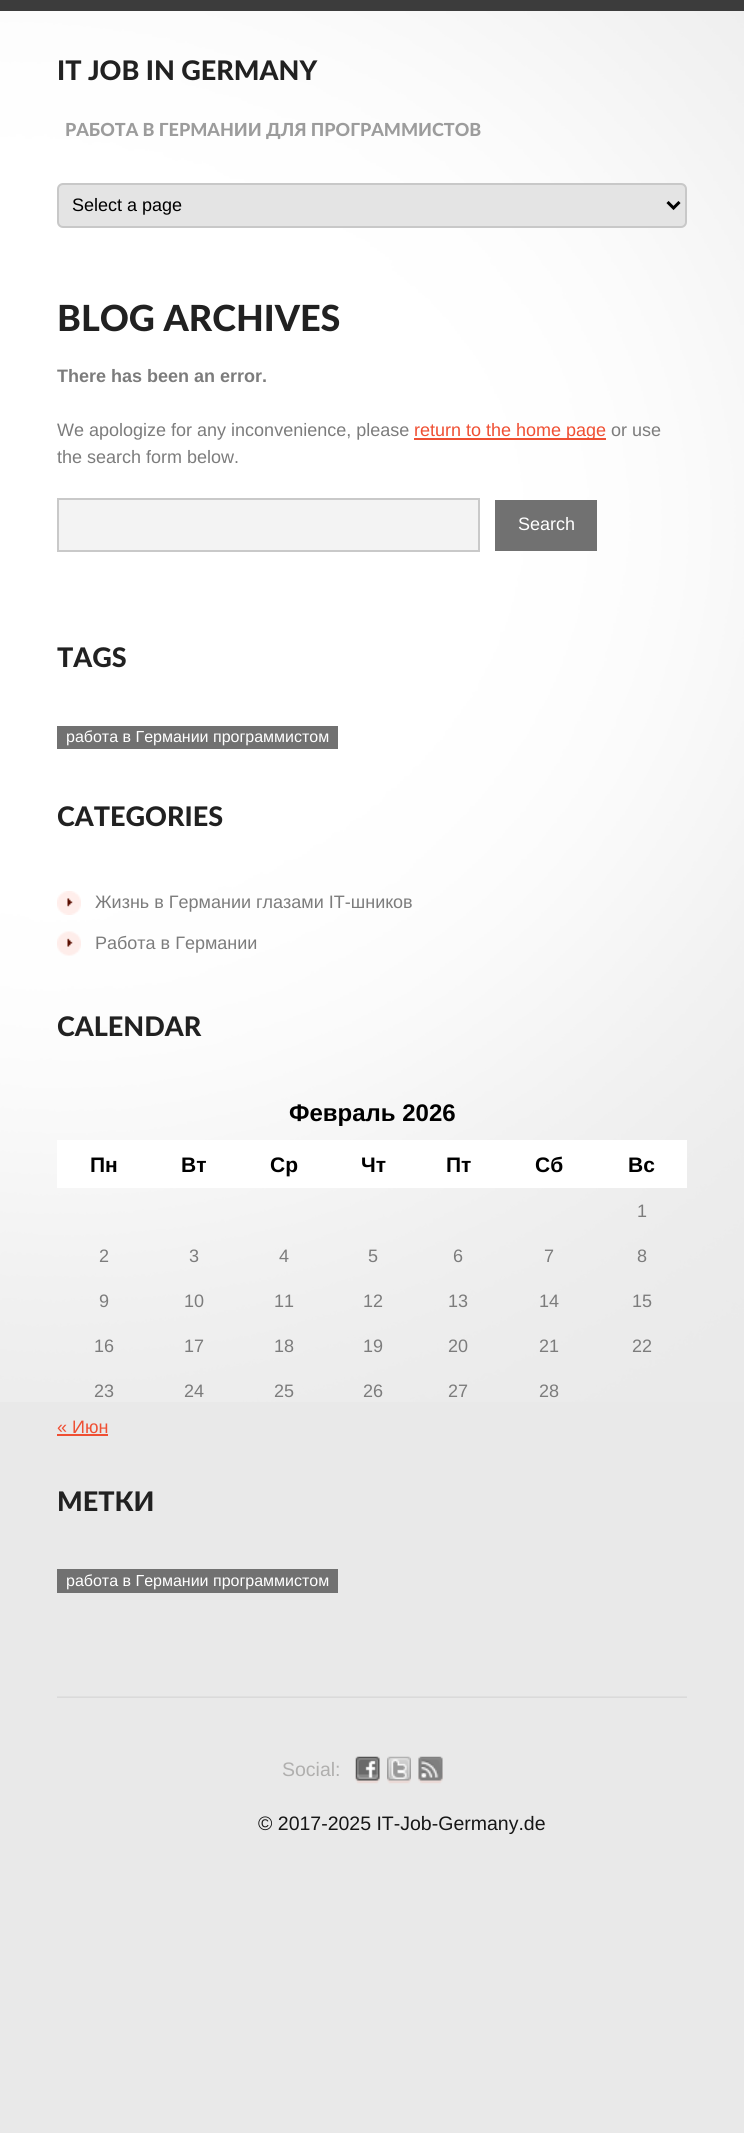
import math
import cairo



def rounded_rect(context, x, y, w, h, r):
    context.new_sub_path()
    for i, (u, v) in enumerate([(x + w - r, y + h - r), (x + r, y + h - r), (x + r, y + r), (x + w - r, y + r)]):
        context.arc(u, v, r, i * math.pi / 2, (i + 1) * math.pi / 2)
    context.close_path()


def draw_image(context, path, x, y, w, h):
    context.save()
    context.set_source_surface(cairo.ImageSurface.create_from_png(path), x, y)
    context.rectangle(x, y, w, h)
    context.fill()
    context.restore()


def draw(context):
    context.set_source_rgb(233 / 255, 233 / 255, 233 / 255)
    context.paint()
    draw_image(context, "images/1.png", 0, 11, 744, 1391)
    context.set_source_rgb(60 / 255, 60 / 255, 60 / 255)
    context.rectangle(0, 0, 744, 11)
    context.fill()
    context.set_source_rgb(228 / 255, 228 / 255, 228 / 255)
    rounded_rect(context, 58, 184, 628, 43, 5)
    context.fill_preserve()
    context.set_source_rgb(200 / 255, 200 / 255, 200 / 255)
    context.stroke()
    context.new_path()
    context.move_to(667.5, 202)
    context.line_to(673.5, 208)
    context.line_to(679.5, 202)
    context.set_source_rgb(0, 0, 0)
    context.set_line_width(3)
    context.stroke()
    context.set_source_rgb(239 / 255, 79 / 255, 51 / 255)
    context.rectangle(414, 438, 192, 2)
    context.fill()
    context.set_source_rgb(243 / 255, 243 / 255, 243 / 255)
    context.rectangle(58, 499, 421, 52)
    context.fill_preserve()
    context.set_source_rgb(201 / 255, 201 / 255, 201 / 255)
    context.set_line_width(2)
    context.stroke()
    context.set_source_rgb(113 / 255, 113 / 255, 113 / 255)
    context.rectangle(495, 500, 102, 51)
    context.fill()
    context.rectangle(57, 726, 281, 23)
    context.fill()
    draw_image(context, "images/2.png", 57, 891, 24, 24)
    draw_image(context, "images/3.png", 57, 931, 24, 25)
    context.set_source_rgb(1, 1, 1)
    context.rectangle(57, 1140, 630, 48)
    context.fill()
    context.set_source_rgb(239 / 255, 79 / 255, 51 / 255)
    context.rectangle(57, 1434, 51, 2)
    context.fill()
    context.set_source_rgb(113 / 255, 113 / 255, 113 / 255)
    context.rectangle(57, 1569, 281, 24)
    context.fill()
    draw_image(context, "images/4.png", 57, 1696, 630, 2)
    draw_image(context, "images/5.png", 355, 1772, 25, 12)
    draw_image(context, "images/6.png", 355, 1756, 25, 25)
    draw_image(context, "images/7.png", 387, 1777, 24, 7)
    draw_image(context, "images/8.png", 387, 1756, 24, 25)
    draw_image(context, "images/9.png", 418, 1772, 25, 12)
    draw_image(context, "images/10.png", 418, 1756, 25, 25)
    context.select_font_face("Lato Black")
    context.set_font_size(27)
    context.set_source_rgb(33 / 255, 33 / 255, 33 / 255)
    context.move_to(57, 80)
    context.show_text("IT JOB IN GERMANY")
    context.set_font_size(18)
    context.set_source_rgb(156 / 255, 156 / 255, 156 / 255)
    context.move_to(65, 136)
    context.show_text("РАБОТА В ГЕРМАНИИ ДЛЯ ПРОГРАММИСТОВ")
    context.select_font_face("Liberation Sans")
    context.set_source_rgb(0, 0, 0)
    context.move_to(72, 211)
    context.show_text("Select a page")
    context.select_font_face("Lato Black")
    context.set_font_size(36)
    context.set_source_rgb(33 / 255, 33 / 255, 33 / 255)
    context.move_to(57, 331)
    context.show_text("BLOG ARCHIVES")
    context.select_font_face("Liberation Sans", cairo.FontSlant.NORMAL, cairo.FontWeight.BOLD)
    context.set_font_size(18)
    context.set_source_rgb(124 / 255, 124 / 255, 124 / 255)
    context.move_to(57, 382)
    context.show_text("There has been an error.")
    context.select_font_face("Liberation Sans")
    context.move_to(57, 436)
    context.show_text("We apologize for any inconvenience, please")
    context.set_source_rgb(239 / 255, 79 / 255, 51 / 255)
    context.move_to(414, 436)
    context.show_text("return to the home page")
    context.set_source_rgb(124 / 255, 124 / 255, 124 / 255)
    context.move_to(611, 436)
    context.show_text("or use")
    context.move_to(57, 463)
    context.show_text("the search form below.")
    context.set_source_rgb(1, 1, 1)
    context.move_to(518, 530)
    context.show_text("Search")
    context.select_font_face("Lato Black")
    context.set_font_size(27)
    context.set_source_rgb(33 / 255, 33 / 255, 33 / 255)
    context.move_to(57, 667)
    context.show_text("TAGS")
    context.select_font_face("Liberation Sans")
    context.set_font_size(16)
    context.set_source_rgb(1, 1, 1)
    context.move_to(66, 742)
    context.show_text("работа в Германии программистом")
    context.select_font_face("Lato Black")
    context.set_font_size(27)
    context.set_source_rgb(33 / 255, 33 / 255, 33 / 255)
    context.move_to(57, 826)
    context.show_text("CATEGORIES")
    context.select_font_face("Liberation Sans")
    context.set_font_size(18)
    context.set_source_rgb(124 / 255, 124 / 255, 124 / 255)
    context.move_to(95, 908)
    context.show_text("Жизнь в Германии глазами IT-шников")
    context.move_to(95, 949)
    context.show_text("Работа в Германии")
    context.select_font_face("Lato Black")
    context.set_font_size(27)
    context.set_source_rgb(33 / 255, 33 / 255, 33 / 255)
    context.move_to(57, 1036)
    context.show_text("CALENDAR")
    context.select_font_face("Liberation Sans", cairo.FontSlant.NORMAL, cairo.FontWeight.BOLD)
    context.set_font_size(24)
    context.set_source_rgb(0, 0, 0)
    context.move_to(289, 1121)
    context.show_text("Февраль 2026")
    context.set_font_size(21)
    context.move_to(90, 1172)
    context.show_text("Пн")
    context.move_to(181, 1172)
    context.show_text("Вт")
    context.move_to(270, 1172)
    context.show_text("Ср")
    context.move_to(361, 1172)
    context.show_text("Чт")
    context.move_to(446, 1172)
    context.show_text("Пт")
    context.move_to(535, 1172)
    context.show_text("Сб")
    context.move_to(628, 1172)
    context.show_text("Вс")
    context.select_font_face("Liberation Sans")
    context.set_font_size(18)
    context.set_source_rgb(124 / 255, 124 / 255, 124 / 255)
    context.move_to(637, 1217)
    context.show_text("1")
    context.move_to(99, 1262)
    context.show_text("2")
    context.move_to(189, 1262)
    context.show_text("3")
    context.move_to(279, 1262)
    context.show_text("4")
    context.move_to(368, 1262)
    context.show_text("5")
    context.move_to(453, 1262)
    context.show_text("6")
    context.move_to(544, 1262)
    context.show_text("7")
    context.move_to(637, 1262)
    context.show_text("8")
    context.move_to(99, 1307)
    context.show_text("9")
    context.move_to(184, 1307)
    context.show_text("10")
    context.move_to(274, 1307)
    context.show_text("11")
    context.move_to(363, 1307)
    context.show_text("12")
    context.move_to(448, 1307)
    context.show_text("13")
    context.move_to(539, 1307)
    context.show_text("14")
    context.move_to(632, 1307)
    context.show_text("15")
    context.move_to(94, 1352)
    context.show_text("16")
    context.move_to(184, 1352)
    context.show_text("17")
    context.move_to(274, 1352)
    context.show_text("18")
    context.move_to(363, 1352)
    context.show_text("19")
    context.move_to(448, 1352)
    context.show_text("20")
    context.move_to(539, 1352)
    context.show_text("21")
    context.move_to(632, 1352)
    context.show_text("22")
    context.move_to(94, 1397)
    context.show_text("23")
    context.move_to(184, 1397)
    context.show_text("24")
    context.move_to(274, 1397)
    context.show_text("25")
    context.move_to(363, 1397)
    context.show_text("26")
    context.move_to(448, 1397)
    context.show_text("27")
    context.move_to(539, 1397)
    context.show_text("28")
    context.set_source_rgb(239 / 255, 79 / 255, 51 / 255)
    context.move_to(57, 1433)
    context.show_text("« Июн")
    context.select_font_face("Lato Black")
    context.set_font_size(27)
    context.set_source_rgb(33 / 255, 33 / 255, 33 / 255)
    context.move_to(57, 1511)
    context.show_text("МЕТКИ")
    context.select_font_face("Liberation Sans")
    context.set_font_size(16)
    context.set_source_rgb(1, 1, 1)
    context.move_to(66, 1586)
    context.show_text("работа в Германии программистом")
    context.set_font_size(19.5)
    context.set_source_rgb(176 / 255, 175 / 255, 174 / 255)
    context.move_to(282, 1776)
    context.show_text("Social:")
    context.set_source_rgb(22 / 255, 22 / 255, 22 / 255)
    context.move_to(258, 1830)
    context.show_text("© 2017-2025 IT-Job-Germany.de")


surface = cairo.ImageSurface(cairo.Format.RGB24, 744, 2133)
context = cairo.Context(surface)
options = cairo.FontOptions()
options.set_hint_metrics(cairo.HintMetrics.OFF)
options.set_hint_style(cairo.HintStyle.NONE)
context.set_font_options(options)
context.set_miter_limit(4)
draw(context)
surface.write_to_png("out.png")
